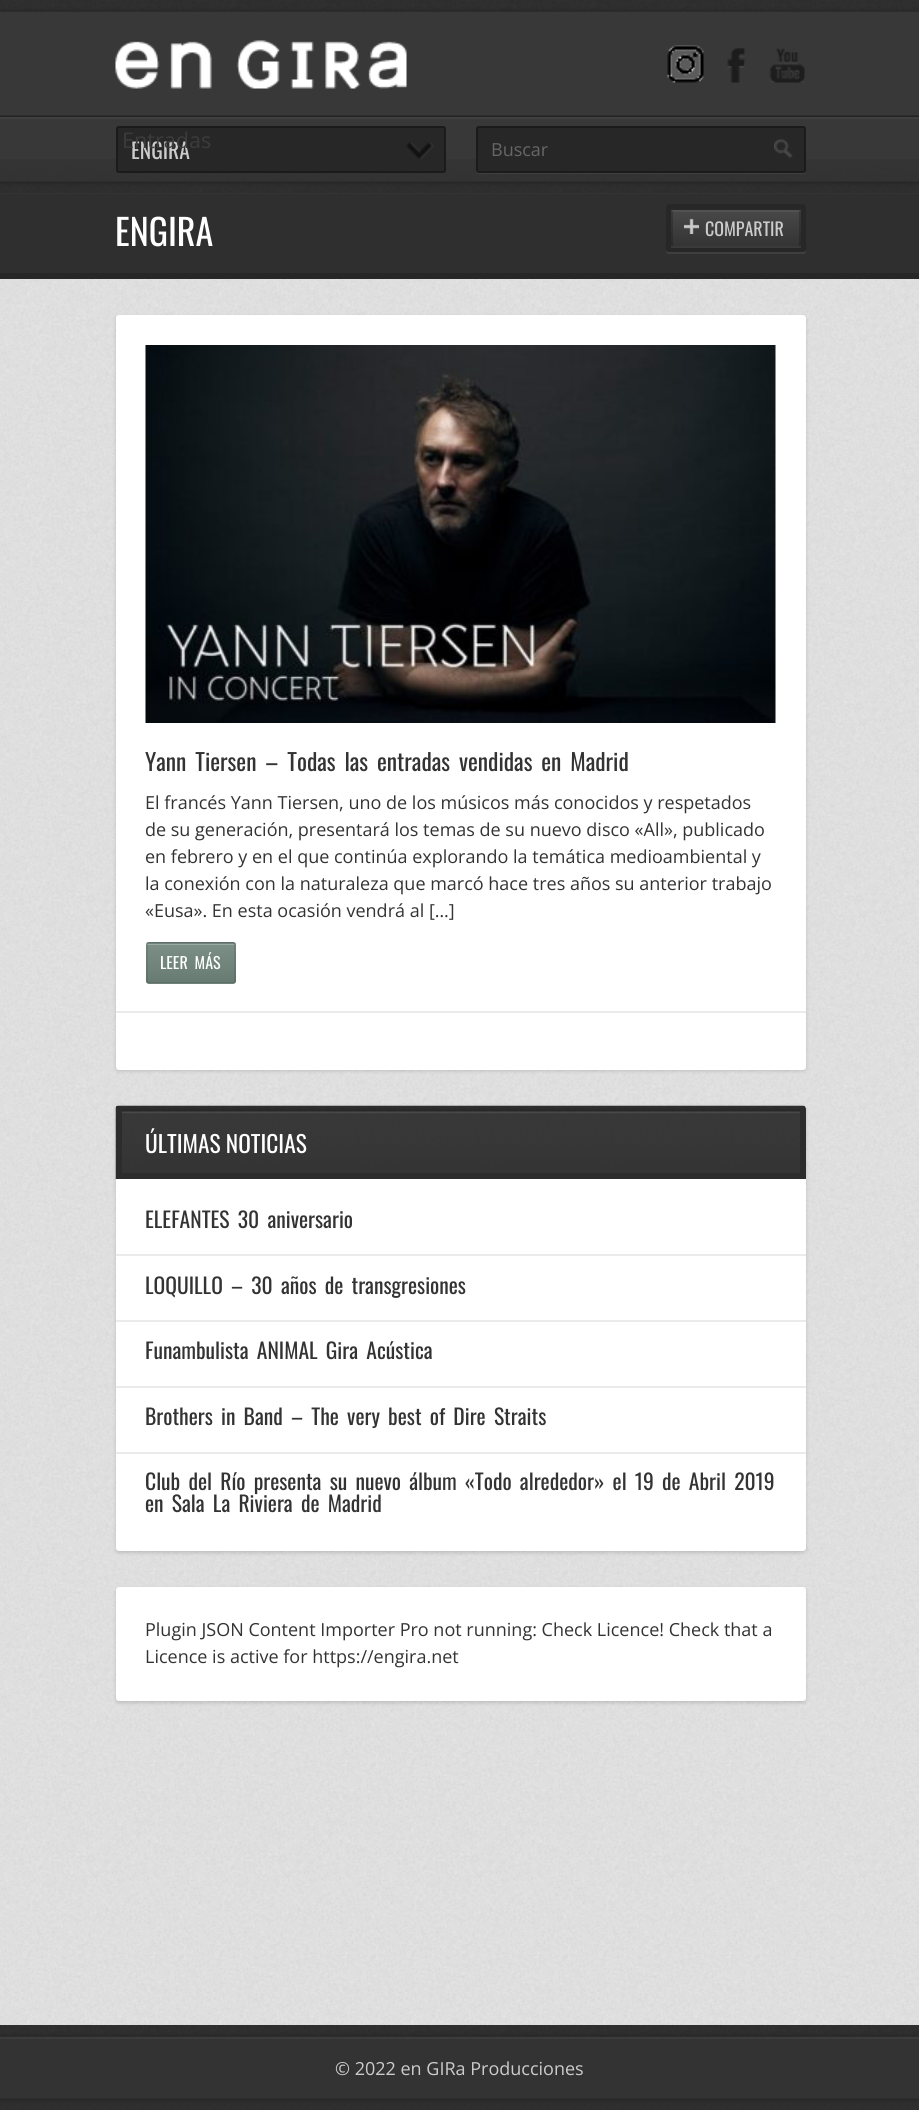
import math
import cairo



def draw_spaced(context, x, y, s, letter, word):
    context.move_to(x, y)
    for ch in s:
        context.show_text(ch)
        context.rel_move_to(letter + word * (ch == ' '), 0)


def rounded_rect(context, x, y, w, h, r):
    context.new_sub_path()
    for i, (u, v) in enumerate([(x + w - r, y + h - r), (x + r, y + h - r), (x + r, y + r), (x + w - r, y + r)]):
        context.arc(u, v, r, i * math.pi / 2, (i + 1) * math.pi / 2)
    context.close_path()


def draw_shadow(context, x, y, w, h, r, blur, alpha):
    context.push_group_with_content(cairo.Content.ALPHA)
    context.set_operator(cairo.Operator.SOURCE)
    for i in range(15, -16, -2):
        e = blur * i / 6
        if min(w, h) + 2 * e > 0:
            context.set_source_rgba(0, 0, 0, alpha * math.erfc((i - 1) / 8.5) / 2)
            rounded_rect(context, x - e, y - e, w + 2 * e, h + 2 * e, max(0, min(r + e + blur * .6, min(w, h) / 2 + e)))
            context.fill()
    context.mask(context.pop_group())


def draw_image(context, path, x, y, w, h):
    context.save()
    context.set_source_surface(cairo.ImageSurface.create_from_png(path), x, y)
    context.rectangle(x, y, w, h)
    context.fill()
    context.restore()


def draw(context):
    context.set_source_rgb(1, 1, 1)
    context.paint()
    draw_image(context, "images/1.png", 0, 279, 919, 1746)
    context.set_source_rgb(56 / 255, 56 / 255, 56 / 255)
    context.rectangle(0, 12, 919, 182)
    context.fill()
    draw_image(context, "images/2.png", 0, 159, 919, 35)
    draw_image(context, "images/3.png", 0, 0, 919, 12)
    draw_image(context, "images/4.png", 115, 40, 292, 49)
    draw_image(context, "images/5.png", 667, 45, 37, 38)
    draw_image(context, "images/6.png", 727, 48, 19, 35)
    draw_image(context, "images/7.png", 769, 48, 36, 35)
    draw_image(context, "images/8.png", 0, 115, 919, 4)
    context.set_source_rgb(39 / 255, 39 / 255, 39 / 255)
    rounded_rect(context, 116, 126, 330, 47, 3)
    context.fill()
    draw_image(context, "images/9.png", 406, 142, 28, 17)
    rounded_rect(context, 117, 127, 328, 45, 2)
    context.set_source_rgb(27 / 255, 27 / 255, 27 / 255)
    context.stroke()
    context.set_source_rgb(63 / 255, 63 / 255, 63 / 255)
    context.new_path()
    context.move_to(476, 171)
    context.curve_to(476, 173, 477, 174, 479, 174)
    context.line_to(803, 174)
    context.curve_to(805, 174, 806, 173, 806, 171)
    context.line_to(806, 131)
    context.line_to(806, 129)
    context.line_to(806, 170)
    context.curve_to(806, 171, 804, 172, 802, 172)
    context.line_to(478, 172)
    context.curve_to(477, 172, 477, 172, 476, 171)
    context.close_path()
    context.fill()
    context.set_source_rgb(39 / 255, 39 / 255, 39 / 255)
    rounded_rect(context, 476, 126, 330, 47, 3)
    context.fill()
    draw_image(context, "images/10.png", 774, 139, 19, 19)
    rounded_rect(context, 477, 127, 328, 45, 2)
    context.set_source_rgb(27 / 255, 27 / 255, 27 / 255)
    context.stroke()
    context.set_source_rgb(47 / 255, 47 / 255, 47 / 255)
    context.rectangle(0, 194, 919, 79)
    context.fill()
    context.set_source_rgb(39 / 255, 39 / 255, 39 / 255)
    context.rectangle(0, 273, 919, 6)
    context.fill()
    context.set_source_rgb(63 / 255, 63 / 255, 63 / 255)
    context.new_path()
    context.move_to(666, 249)
    context.line_to(666, 251)
    context.curve_to(666, 253, 667, 254, 669, 254)
    context.line_to(803, 254)
    context.curve_to(805, 254, 806, 253, 806, 251)
    context.line_to(806, 209)
    context.line_to(806, 207)
    context.line_to(806, 249)
    context.curve_to(806, 251, 804, 252, 802, 252)
    context.line_to(669, 252)
    context.curve_to(667, 252, 666, 251, 666, 249)
    context.close_path()
    context.fill()
    rounded_rect(context, 668.5, 206.5, 135, 43, 0.5)
    context.set_source_rgb(39 / 255, 39 / 255, 39 / 255)
    context.set_line_width(5)
    context.stroke()
    context.set_source_rgb(56 / 255, 56 / 255, 56 / 255)
    rounded_rect(context, 671, 209, 130, 39, 3)
    context.fill()
    gradient = cairo.LinearGradient(672, 210, 672, 174)
    gradient.add_color_stop_rgba(0, 0, 0, 0, 0.08)
    gradient.add_color_stop_rgba(0.5, 128 / 255, 128 / 255, 128 / 255, 0.08)
    gradient.add_color_stop_rgba(1, 1, 1, 1, 0.08)
    context.set_source(gradient)
    context.rectangle(671, 209, 130, 1)
    context.fill()
    gradient = cairo.LinearGradient(672, 246, 672, 210)
    gradient.add_color_stop_rgba(0, 0, 0, 0, 0.08)
    gradient.add_color_stop_rgba(0.5, 128 / 255, 128 / 255, 128 / 255, 0.08)
    gradient.add_color_stop_rgba(1, 1, 1, 1, 0.08)
    context.set_source(gradient)
    context.rectangle(671, 210, 130, 36)
    context.fill()
    gradient = cairo.LinearGradient(672, 282, 672, 246)
    gradient.add_color_stop_rgba(0, 0, 0, 0, 0.08)
    gradient.add_color_stop_rgba(0.5, 128 / 255, 128 / 255, 128 / 255, 0.08)
    gradient.add_color_stop_rgba(1, 1, 1, 1, 0.08)
    context.set_source(gradient)
    context.rectangle(671, 246, 130, 2)
    context.fill()
    rounded_rect(context, 672, 210, 128, 37, 2)
    context.set_source_rgba(0, 0, 0, 0.2)
    context.set_line_width(2)
    context.stroke()
    draw_image(context, "images/11.png", 684, 218, 15, 16)
    draw_image(context, "images/12.png", 672, 210, 128, 2)
    context.set_source_rgb(0, 0, 0)
    draw_shadow(context, 116, 317, 690, 754, 3, 2, 0.15)
    context.set_source_rgb(1, 1, 1)
    rounded_rect(context, 116, 315, 690, 755, 3)
    context.fill()
    context.set_source_rgb(235 / 255, 235 / 255, 235 / 255)
    context.rectangle(116, 1011, 690, 2)
    context.fill()
    draw_image(context, "images/13.png", 145, 345, 631, 378)
    context.set_source_rgb(112 / 255, 133 / 255, 125 / 255)
    rounded_rect(context, 146, 942, 90, 42, 3)
    context.fill()
    gradient = cairo.LinearGradient(147, 944, 147, 905)
    gradient.add_color_stop_rgba(0, 0, 0, 0, 0.08)
    gradient.add_color_stop_rgba(0.5, 128 / 255, 128 / 255, 128 / 255, 0.08)
    gradient.add_color_stop_rgba(1, 1, 1, 1, 0.08)
    context.set_source(gradient)
    context.rectangle(146, 942, 90, 2)
    context.fill()
    gradient = cairo.LinearGradient(147, 983, 147, 944)
    gradient.add_color_stop_rgba(0, 0, 0, 0, 0.08)
    gradient.add_color_stop_rgba(0.5, 128 / 255, 128 / 255, 128 / 255, 0.08)
    gradient.add_color_stop_rgba(1, 1, 1, 1, 0.08)
    context.set_source(gradient)
    context.rectangle(146, 944, 90, 39)
    context.fill()
    gradient = cairo.LinearGradient(147, 1022, 147, 983)
    gradient.add_color_stop_rgba(0, 0, 0, 0, 0.08)
    gradient.add_color_stop_rgba(0.5, 128 / 255, 128 / 255, 128 / 255, 0.08)
    gradient.add_color_stop_rgba(1, 1, 1, 1, 0.08)
    context.set_source(gradient)
    context.rectangle(146, 983, 90, 1)
    context.fill()
    rounded_rect(context, 147, 943, 88, 40, 2)
    context.set_source_rgba(0, 0, 0, 0.1)
    context.stroke()
    draw_image(context, "images/14.png", 147, 943, 87, 2)
    context.set_source_rgb(0, 0, 0)
    draw_shadow(context, 116, 1107, 690, 446, 3, 2, 0.15)
    context.set_source_rgb(1, 1, 1)
    rounded_rect(context, 116, 1106, 690, 445, 3)
    context.fill()
    draw_image(context, "images/15.png", 115, 1105, 691, 74)
    context.set_source_rgb(44 / 255, 44 / 255, 44 / 255)
    context.new_path()
    context.move_to(800, 1106)
    context.line_to(803, 1106)
    context.curve_to(804.5, 1106, 806, 1107.5, 806, 1109)
    context.line_to(806, 1179)
    context.line_to(800, 1179)
    context.close_path()
    context.fill()
    context.rectangle(116, 1173, 690, 6)
    context.fill()
    context.new_path()
    context.move_to(119, 1106)
    context.line_to(122, 1106)
    context.line_to(122, 1179)
    context.line_to(116, 1179)
    context.line_to(116, 1109)
    context.curve_to(116, 1107.5, 117.5, 1106, 119, 1106)
    context.close_path()
    context.fill()
    context.set_source_rgb(235 / 255, 235 / 255, 235 / 255)
    context.rectangle(116, 1254, 690, 2)
    context.fill()
    context.rectangle(116, 1320, 690, 2)
    context.fill()
    context.rectangle(116, 1386, 690, 2)
    context.fill()
    context.rectangle(116, 1452, 690, 2)
    context.fill()
    context.set_source_rgb(0, 0, 0)
    draw_shadow(context, 116, 1589, 690, 114, 3, 2, 0.15)
    context.set_source_rgb(1, 1, 1)
    rounded_rect(context, 116, 1587, 690, 114, 3)
    context.fill()
    draw_image(context, "images/16.png", 0, 2025, 919, 14)
    context.set_source_rgb(51 / 255, 51 / 255, 51 / 255)
    context.rectangle(0, 2039, 919, 60)
    context.fill()
    draw_image(context, "images/17.png", 0, 2098, 919, 12)
    context.select_font_face("Oswald")
    context.set_font_size(21.6)
    context.set_source_rgb(204 / 255, 204 / 255, 204 / 255)
    context.move_to(131, 159)
    context.show_text("ENGIRA")
    context.select_font_face("Open Sans")
    context.set_source_rgb(59 / 255, 59 / 255, 59 / 255)
    context.move_to(122, 148)
    context.show_text("Entradas")
    context.set_font_size(18)
    context.set_source_rgb(102 / 255, 102 / 255, 102 / 255)
    context.move_to(491, 156)
    context.show_text("Buscar")
    context.select_font_face("Oswald")
    context.set_font_size(36)
    context.set_source_rgb(1, 1, 1)
    context.move_to(115, 246)
    context.show_text("ENGIRA")
    context.set_font_size(18)
    context.set_source_rgb(204 / 255, 204 / 255, 204 / 255)
    context.move_to(705, 236)
    context.show_text("COMPARTIR")
    context.set_font_size(23.4)
    context.set_source_rgb(51 / 255, 51 / 255, 51 / 255)
    draw_spaced(context, 145, 771, "Yann Tiersen – Todas las entradas vendidas en Madrid", 0, 3.5)
    context.select_font_face("Open Sans")
    context.set_font_size(18)
    context.move_to(145, 809)
    context.show_text("El francés Yann Tiersen, uno de los músicos más conocidos y respetados")
    context.move_to(145, 836)
    context.show_text("de su generación, presentará los temas de su nuevo disco «All», publicado")
    context.move_to(145, 863)
    context.show_text("en febrero y en el que continúa explorando la temática medioambiental y")
    context.move_to(145, 890)
    context.show_text("la conexión con la naturaleza que marcó hace tres años su anterior trabajo")
    context.move_to(145, 917)
    context.show_text("«Eusa». En esta ocasión vendrá al […]")
    context.select_font_face("Oswald")
    context.set_font_size(16)
    context.set_source_rgb(1, 1, 1)
    draw_spaced(context, 160, 969, "LEER MÁS", 0, 3.25)
    context.set_font_size(23.4)
    context.move_to(145, 1153)
    context.show_text("ÚLTIMAS NOTICIAS")
    context.set_font_size(21.6)
    context.set_source_rgb(51 / 255, 51 / 255, 51 / 255)
    draw_spaced(context, 145, 1228, "ELEFANTES 30 aniversario", 0, 3.25)
    draw_spaced(context, 145, 1294, "LOQUILLO – 30 años de transgresiones", 0, 3.25)
    draw_spaced(context, 145, 1359, "Funambulista ANIMAL Gira Acústica", 0, 3.25)
    draw_spaced(context, 145, 1425, "Brothers in Band – The very best of Dire Straits", 0, 3.25)
    draw_spaced(context, 145, 1490, "Club del Río presenta su nuevo álbum «Todo alrededor» el 19 de Abril 2019", 0, 3.25)
    draw_spaced(context, 145, 1512, "en Sala La Riviera de Madrid", 0, 3.25)
    context.select_font_face("Open Sans")
    context.set_font_size(18)
    context.move_to(145, 1636)
    context.show_text("Plugin JSON Content Importer Pro not running: Check Licence! Check that a")
    context.move_to(145, 1663)
    context.show_text("Licence is active for https://engira.net")
    context.set_source_rgb(204 / 255, 204 / 255, 204 / 255)
    context.move_to(335, 2075)
    context.show_text("© 2022 en GIRa Producciones")


surface = cairo.ImageSurface(cairo.Format.RGB24, 919, 2110)
context = cairo.Context(surface)
options = cairo.FontOptions()
options.set_hint_metrics(cairo.HintMetrics.OFF)
options.set_hint_style(cairo.HintStyle.NONE)
context.set_font_options(options)
context.set_miter_limit(4)
draw(context)
surface.write_to_png("out.png")
